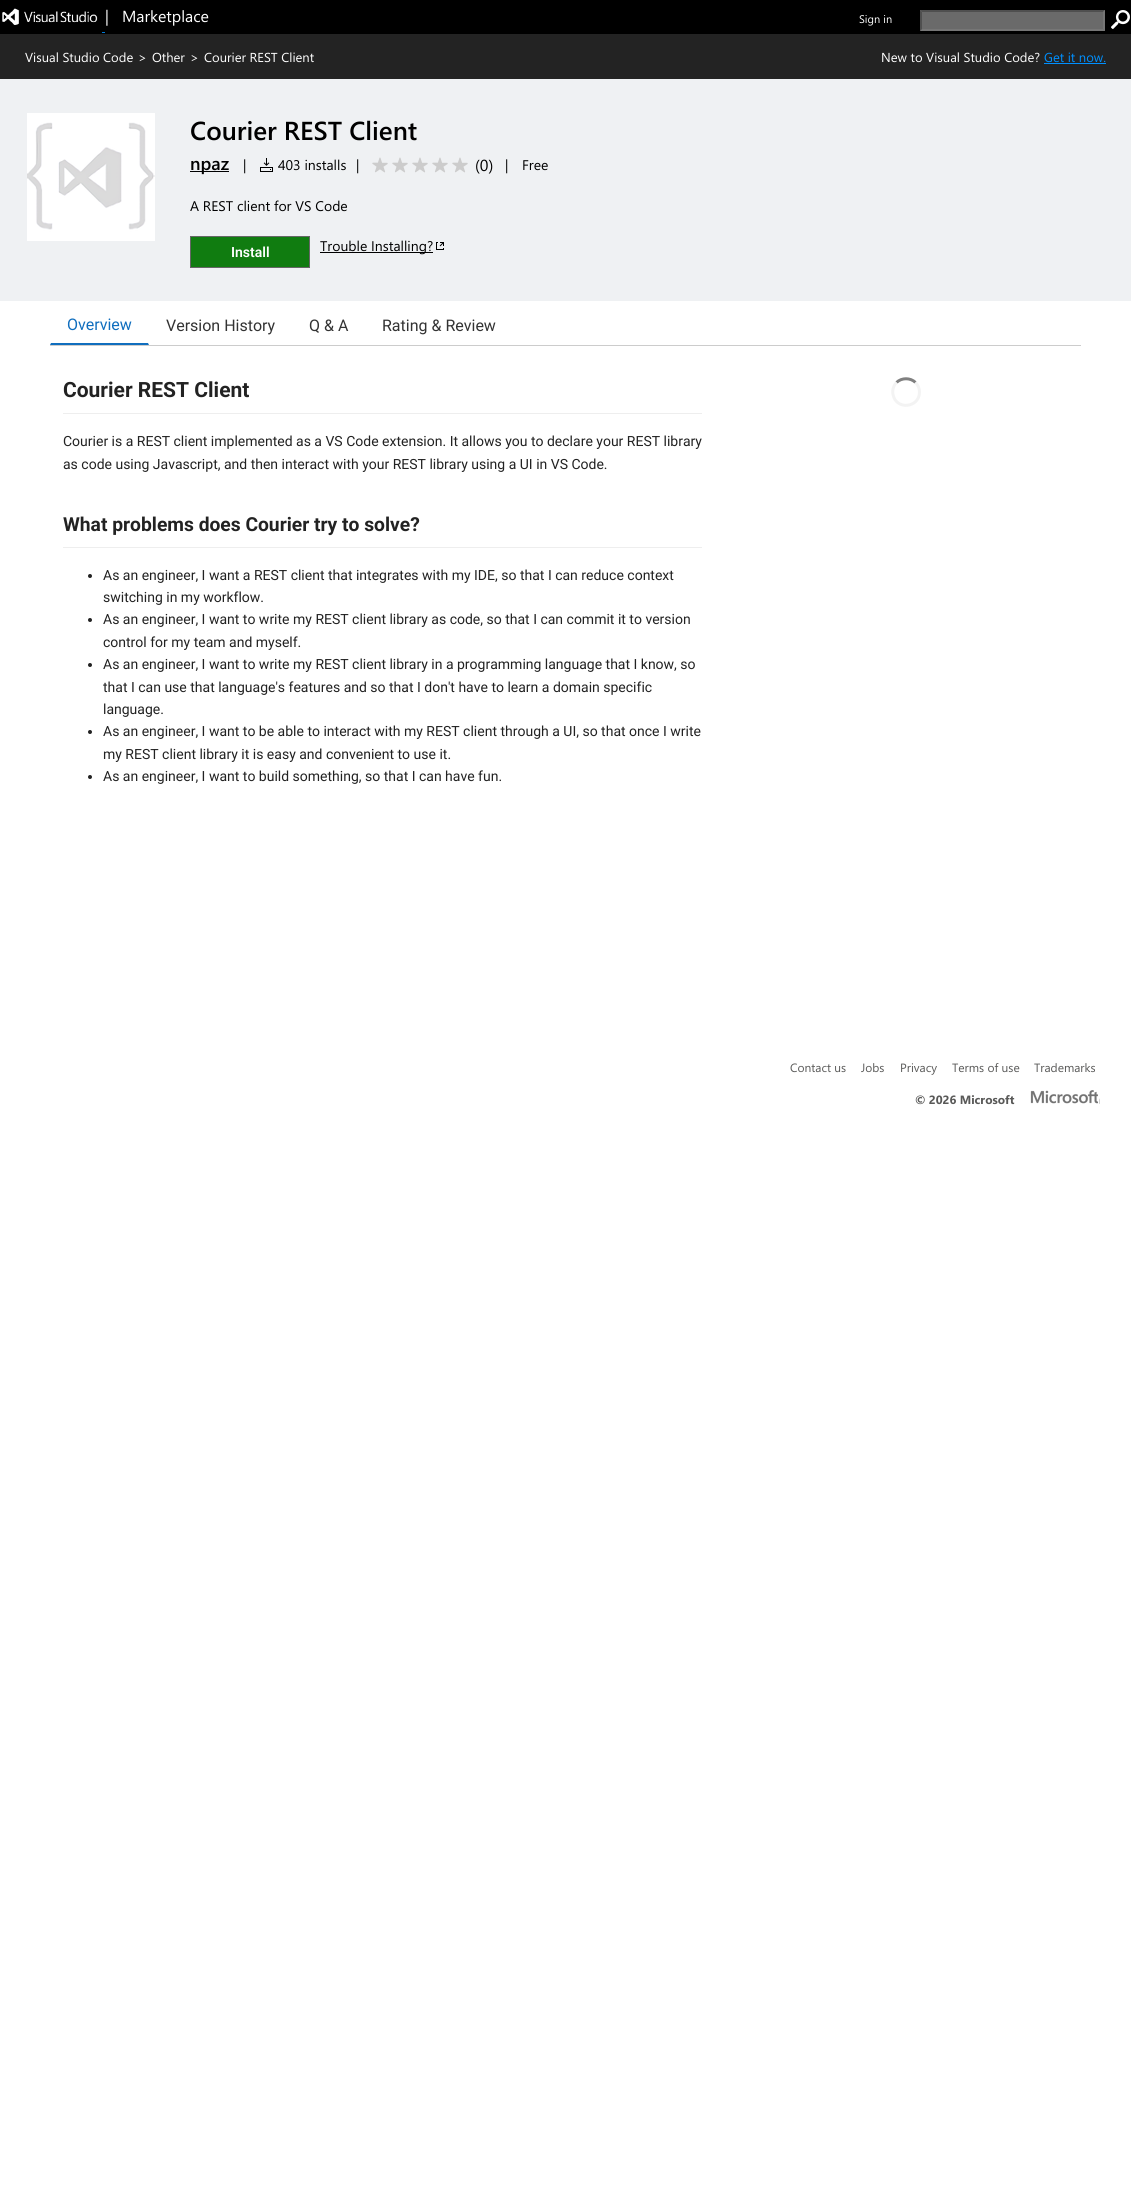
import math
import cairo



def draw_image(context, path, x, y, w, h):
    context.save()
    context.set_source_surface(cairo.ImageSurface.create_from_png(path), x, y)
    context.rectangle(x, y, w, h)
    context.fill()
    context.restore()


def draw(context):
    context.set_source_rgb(1, 1, 1)
    context.paint()
    context.set_source_rgb(0, 0, 0)
    context.rectangle(0, 0, 1131, 34)
    context.fill()
    draw_image(context, "images/1.png", 2, 8, 96, 17)
    context.set_source_rgb(0, 120 / 255, 212 / 255)
    context.rectangle(102, 32, 3, 1)
    context.fill()
    context.set_source_rgb(106 / 255, 106 / 255, 106 / 255)
    context.rectangle(920, 10, 185, 21)
    context.fill()
    context.set_source_rgb(79 / 255, 79 / 255, 79 / 255)
    context.new_path()
    context.move_to(920, 10)
    context.line_to(1105, 10)
    context.line_to(1103, 12)
    context.line_to(922, 12)
    context.close_path()
    context.fill()
    context.set_source_rgb(118 / 255, 118 / 255, 118 / 255)
    context.new_path()
    context.move_to(1105, 10)
    context.line_to(1105, 31)
    context.line_to(1103, 29)
    context.line_to(1103, 12)
    context.close_path()
    context.fill()
    context.new_path()
    context.move_to(1105, 31)
    context.line_to(920, 31)
    context.line_to(922, 29)
    context.line_to(1103, 29)
    context.close_path()
    context.fill()
    context.set_source_rgb(79 / 255, 79 / 255, 79 / 255)
    context.new_path()
    context.move_to(920, 31)
    context.line_to(920, 10)
    context.line_to(922, 12)
    context.line_to(922, 29)
    context.close_path()
    context.fill()
    draw_image(context, "images/2.png", 1111, 10, 19, 19)
    context.set_source_rgb(35 / 255, 35 / 255, 35 / 255)
    context.rectangle(0, 34, 1131, 45)
    context.fill()
    context.set_source_rgb(0, 144 / 255, 1)
    context.rectangle(1044, 63, 62, 1)
    context.fill()
    context.set_source_rgb(239 / 255, 241 / 255, 243 / 255)
    context.rectangle(0, 79, 1131, 222)
    context.fill()
    draw_image(context, "images/3.png", 27, 113, 128, 128)
    context.set_source_rgb(0, 0, 0)
    context.rectangle(190, 171, 39, 1)
    context.fill()
    draw_image(context, "images/4.png", 260, 158, 13, 14)
    draw_image(context, "images/5.png", 372, 157, 16, 16)
    draw_image(context, "images/5.png", 392, 157, 16, 16)
    draw_image(context, "images/5.png", 412, 157, 16, 16)
    draw_image(context, "images/5.png", 432, 157, 16, 16)
    draw_image(context, "images/5.png", 452, 157, 16, 16)
    context.set_source_rgb(16 / 255, 124 / 255, 16 / 255)
    context.rectangle(190.5, 236.5, 119, 31)
    context.fill_preserve()
    context.set_source_rgb(102 / 255, 102 / 255, 102 / 255)
    context.set_line_width(1)
    context.stroke()
    context.set_source_rgb(0, 0, 0)
    context.rectangle(320, 252, 113, 1)
    context.fill()
    draw_image(context, "images/6.png", 436, 242, 8, 8)
    context.set_source_rgb(204 / 255, 204 / 255, 204 / 255)
    context.rectangle(50, 345, 1031, 1)
    context.fill()
    context.set_source_rgb(16 / 255, 110 / 255, 190 / 255)
    context.new_path()
    context.move_to(149, 345)
    context.line_to(50, 345)
    context.line_to(51, 343)
    context.line_to(148, 343)
    context.close_path()
    context.fill()
    context.set_source_rgb(238 / 255, 238 / 255, 238 / 255)
    context.rectangle(63, 413, 639, 1)
    context.fill()
    context.rectangle(63, 547, 639, 1)
    context.fill()
    context.set_source_rgb(34 / 255, 34 / 255, 34 / 255)
    context.arc(90, 576, 2, 0, 2 * math.pi)
    context.fill()
    context.arc(90, 620, 2, 0, 2 * math.pi)
    context.fill()
    context.arc(90, 665, 2, 0, 2 * math.pi)
    context.fill()
    context.arc(90, 732, 2, 0, 2 * math.pi)
    context.fill()
    context.arc(90, 777, 2, 0, 2 * math.pi)
    context.fill()
    context.new_path()
    context.move_to(896.5, 382.5)
    context.curve_to(901.5, 377.5, 910.5, 377.5, 915.5, 382.5)
    context.set_source_rgb(128 / 255, 128 / 255, 128 / 255)
    context.set_line_width(3)
    context.stroke()
    context.new_path()
    context.move_to(915.5, 382.5)
    context.curve_to(918, 385, 919.5, 388.5, 919.5, 392)
    context.curve_to(919.5, 408, 896, 410.5, 893, 394.5)
    context.curve_to(892, 390.5, 893.5, 385.5, 896.5, 382.5)
    context.set_source_rgb(243 / 255, 243 / 255, 243 / 255)
    context.stroke()
    draw_image(context, "images/7.png", 1030, 1090, 70, 14)
    context.select_font_face("Segoe UI")
    context.set_font_size(16)
    context.set_source_rgb(1, 1, 1)
    context.move_to(105, 22)
    context.show_text("|   Marketplace")
    context.set_font_size(11)
    context.move_to(859, 23)
    context.show_text("Sign in")
    context.set_font_size(13)
    context.move_to(25, 62)
    context.show_text("Visual Studio Code")
    context.move_to(138, 62)
    context.show_text(">")
    context.move_to(152, 62)
    context.show_text("Other")
    context.move_to(190, 62)
    context.show_text(">")
    context.move_to(204, 62)
    context.show_text("Courier REST Client")
    context.move_to(881, 62)
    context.show_text("New to Visual Studio Code?")
    context.set_source_rgb(0, 144 / 255, 1)
    context.move_to(1044, 62)
    context.show_text("Get it now.")
    context.select_font_face("Segoe UI SemiBold")
    context.set_font_size(26)
    context.set_source_rgb(0, 0, 0)
    context.move_to(190, 140)
    context.show_text("Courier REST Client")
    context.set_font_size(18)
    context.move_to(190, 170)
    context.show_text("npaz")
    context.select_font_face("Segoe UI")
    context.set_font_size(14)
    context.move_to(243, 170)
    context.show_text("|")
    context.move_to(278, 170)
    context.show_text("403 installs")
    context.move_to(356, 170)
    context.show_text("|")
    context.set_font_size(16)
    context.move_to(475, 171)
    context.show_text("(0)")
    context.set_font_size(14)
    context.move_to(505, 170)
    context.show_text("|")
    context.move_to(522, 170)
    context.show_text("Free")
    context.move_to(190, 211)
    context.show_text("A REST client for VS Code")
    context.select_font_face("Roboto SemiBold")
    context.set_source_rgb(1, 1, 1)
    context.move_to(231, 257)
    context.show_text("Install")
    context.select_font_face("Segoe UI")
    context.set_source_rgb(0, 0, 0)
    context.move_to(320, 251)
    context.show_text("Trouble Installing?")
    context.select_font_face("Roboto")
    context.set_font_size(16)
    context.set_source_rgb(16 / 255, 110 / 255, 190 / 255)
    context.move_to(67, 330)
    context.show_text("Overview")
    context.set_source_rgb(51 / 255, 51 / 255, 51 / 255)
    context.move_to(166, 331)
    context.show_text("Version History")
    context.move_to(309, 331)
    context.show_text("Q & A")
    context.move_to(382, 331)
    context.show_text("Rating & Review")
    context.select_font_face("Roboto", cairo.FontSlant.NORMAL, cairo.FontWeight.BOLD)
    context.set_font_size(21)
    context.set_source_rgb(34 / 255, 34 / 255, 34 / 255)
    context.move_to(63, 397)
    context.show_text("Courier REST Client")
    context.select_font_face("Roboto")
    context.set_font_size(14)
    context.move_to(63, 446)
    context.show_text("Courier is a REST client implemented as a VS Code extension. It allows you to declare your REST library")
    context.move_to(63, 469)
    context.show_text("as code using Javascript, and then interact with your REST library using a UI in VS Code.")
    context.select_font_face("Roboto", cairo.FontSlant.NORMAL, cairo.FontWeight.BOLD)
    context.set_font_size(19.25)
    context.move_to(63, 531)
    context.show_text("What problems does Courier try to solve?")
    context.select_font_face("Roboto")
    context.set_font_size(14)
    context.move_to(103, 580)
    context.show_text("As an engineer, I want a REST client that integrates with my IDE, so that I can reduce context")
    context.move_to(103, 602)
    context.show_text("switching in my workflow.")
    context.move_to(103, 624)
    context.show_text("As an engineer, I want to write my REST client library as code, so that I can commit it to version")
    context.move_to(103, 647)
    context.show_text("control for my team and myself.")
    context.move_to(103, 669)
    context.show_text("As an engineer, I want to write my REST client library in a programming language that I know, so")
    context.move_to(103, 692)
    context.show_text("that I can use that language's features and so that I don't have to learn a domain specific")
    context.move_to(103, 714)
    context.show_text("language.")
    context.move_to(103, 736)
    context.show_text("As an engineer, I want to be able to interact with my REST client through a UI, so that once I write")
    context.move_to(103, 759)
    context.show_text("my REST client library it is easy and convenient to use it.")
    context.move_to(103, 781)
    context.show_text("As an engineer, I want to build something, so that I can have fun.")
    context.select_font_face("Segoe UI")
    context.set_font_size(12)
    context.set_source_rgb(89 / 255, 89 / 255, 88 / 255)
    context.move_to(790, 1072)
    context.show_text("Contact us")
    context.move_to(861, 1072)
    context.show_text("Jobs")
    context.move_to(900, 1072)
    context.show_text("Privacy")
    context.move_to(952, 1072)
    context.show_text("Terms of use")
    context.move_to(1034, 1072)
    context.show_text("Trademarks")
    context.select_font_face("Segoe UI", cairo.FontSlant.NORMAL, cairo.FontWeight.BOLD)
    context.move_to(915, 1104)
    context.show_text("© 2026 Microsoft")


surface = cairo.ImageSurface(cairo.Format.RGB24, 1131, 2206)
context = cairo.Context(surface)
options = cairo.FontOptions()
options.set_hint_metrics(cairo.HintMetrics.OFF)
options.set_hint_style(cairo.HintStyle.NONE)
context.set_font_options(options)
context.set_miter_limit(4)
draw(context)
surface.write_to_png("out.png")
